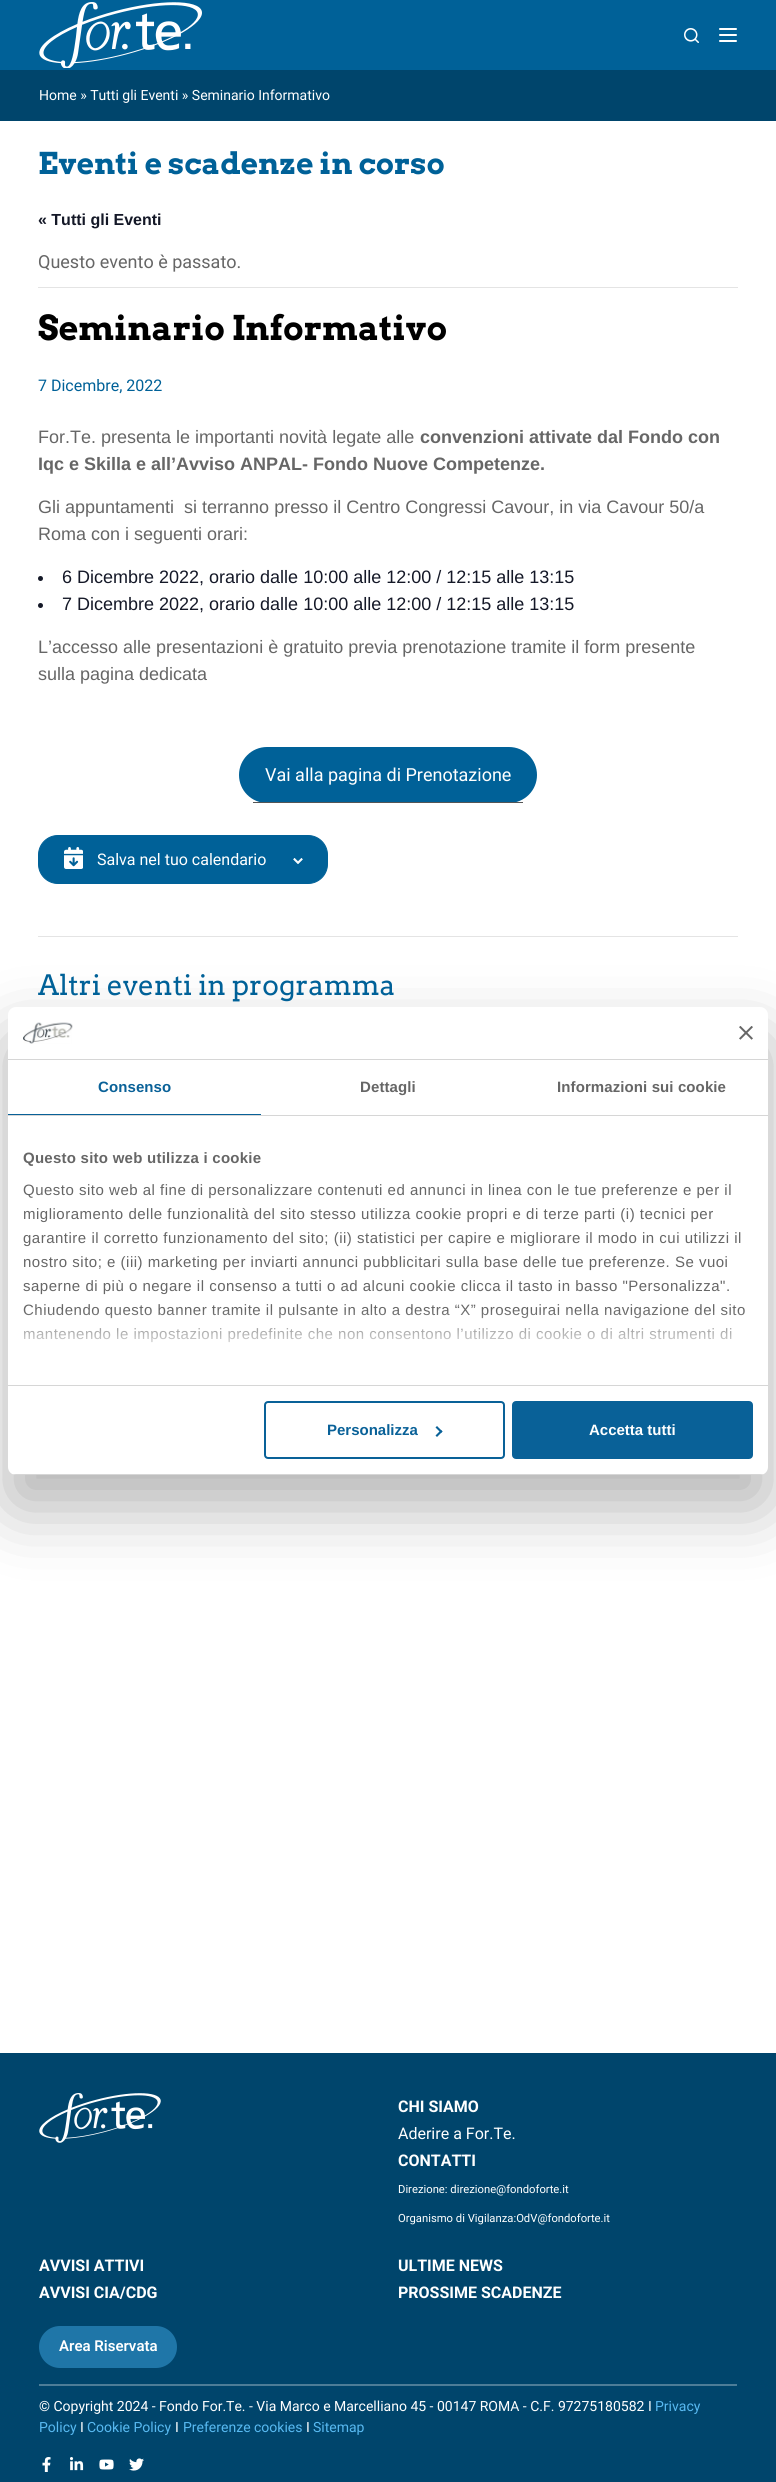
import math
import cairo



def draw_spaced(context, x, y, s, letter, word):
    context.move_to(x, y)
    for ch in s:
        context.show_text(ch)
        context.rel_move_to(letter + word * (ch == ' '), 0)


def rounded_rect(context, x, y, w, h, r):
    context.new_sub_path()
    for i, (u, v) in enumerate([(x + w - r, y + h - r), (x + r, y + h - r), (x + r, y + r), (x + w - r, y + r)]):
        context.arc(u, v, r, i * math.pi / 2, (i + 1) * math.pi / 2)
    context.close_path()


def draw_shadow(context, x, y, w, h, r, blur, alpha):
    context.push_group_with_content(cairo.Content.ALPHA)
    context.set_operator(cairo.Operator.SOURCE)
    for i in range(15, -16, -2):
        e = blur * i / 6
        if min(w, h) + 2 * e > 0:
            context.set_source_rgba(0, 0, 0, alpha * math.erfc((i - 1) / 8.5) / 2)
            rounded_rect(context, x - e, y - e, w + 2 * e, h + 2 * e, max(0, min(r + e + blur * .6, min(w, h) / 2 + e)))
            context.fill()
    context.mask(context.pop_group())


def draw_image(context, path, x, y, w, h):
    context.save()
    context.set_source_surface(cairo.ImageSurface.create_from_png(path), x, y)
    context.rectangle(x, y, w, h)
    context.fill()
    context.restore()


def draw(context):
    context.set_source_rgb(1, 1, 1)
    context.paint()
    context.set_source_rgb(0, 97 / 255, 152 / 255)
    context.rectangle(0, 0, 776, 70)
    context.fill()
    draw_image(context, "images/1.png", 39, 2, 163, 66)
    draw_image(context, "images/2.png", 684, 28, 15, 15)
    context.set_source_rgb(1, 1, 1)
    rounded_rect(context, 719, 28, 18, 2, 1)
    context.fill()
    rounded_rect(context, 719, 34, 18, 2, 1)
    context.fill()
    rounded_rect(context, 719, 40, 18, 2, 1)
    context.fill()
    context.set_source_rgb(0, 69 / 255, 108 / 255)
    context.rectangle(0, 70, 776, 51)
    context.fill()
    context.set_source_rgb(228 / 255, 228 / 255, 228 / 255)
    context.rectangle(38, 287, 700, 1)
    context.fill()
    context.set_source_rgb(20 / 255, 24 / 255, 39 / 255)
    context.arc(40.5, 578.5, 2.5, 0, 2 * math.pi)
    context.fill()
    context.arc(40.5, 605.5, 2.5, 0, 2 * math.pi)
    context.fill()
    context.set_source_rgb(0, 97 / 255, 152 / 255)
    rounded_rect(context, 239, 747, 298, 56, 28)
    context.fill()
    context.set_source_rgb(85 / 255, 85 / 255, 85 / 255)
    context.rectangle(253, 802, 270, 1)
    context.fill()
    context.set_source_rgb(0, 97 / 255, 152 / 255)
    rounded_rect(context, 38.5, 835.5, 289, 48, 19.5)
    context.fill_preserve()
    context.set_line_width(1)
    context.stroke()
    draw_image(context, "images/3.png", 64, 847, 19, 22)
    draw_image(context, "images/4.png", 293, 858, 10, 6)
    context.set_source_rgb(228 / 255, 228 / 255, 228 / 255)
    context.rectangle(38, 936, 700, 1)
    context.fill()
    context.set_source_rgb(0, 69 / 255, 108 / 255)
    context.rectangle(0, 2053, 776, 429)
    context.fill()
    context.set_source_rgb(77 / 255, 125 / 255, 152 / 255)
    context.rectangle(39, 2384, 698, 2)
    context.fill()
    draw_image(context, "images/5.png", 39, 2093, 122, 50)
    context.set_source_rgb(31 / 255, 118 / 255, 168 / 255)
    rounded_rect(context, 39, 2326, 138, 42, 21)
    context.fill()
    draw_image(context, "images/6.png", 42, 2457, 9, 15)
    draw_image(context, "images/7.png", 70, 2457, 14, 14)
    draw_image(context, "images/8.png", 99, 2459, 15, 11)
    draw_image(context, "images/9.png", 129, 2458, 15, 13)
    context.set_source_rgb(0, 0, 0)
    draw_shadow(context, 8, 1039, 760, 468, 8, 34, 0.3)
    context.set_source_rgb(1, 1, 1)
    rounded_rect(context, 8, 1007, 760, 468, 8)
    context.fill()
    context.set_source_rgb(214 / 255, 214 / 255, 214 / 255)
    context.rectangle(8, 1059, 760, 1)
    context.fill()
    draw_image(context, "images/10.png", 23, 1022, 50, 22)
    draw_image(context, "images/11.png", 739, 1026, 14, 14)
    context.rectangle(8, 1115, 760, 1)
    context.fill()
    context.set_source_rgb(9 / 255, 97 / 255, 152 / 255)
    context.rectangle(8, 1114, 253, 1)
    context.fill()
    context.set_source_rgb(214 / 255, 214 / 255, 214 / 255)
    context.rectangle(8, 1385, 760, 1)
    context.fill()
    context.save()
    rounded_rect(context, 8, 1007, 760, 468, 8)
    context.clip()
    context.rectangle(8, 1474, 760, 1)
    context.fill()
    context.restore()
    rounded_rect(context, 265, 1402, 239, 56, 3)
    context.set_source_rgb(9 / 255, 97 / 255, 152 / 255)
    context.set_line_width(2)
    context.stroke()
    context.new_path()
    context.move_to(437, 1426)
    context.line_to(442.5, 1431.5)
    context.line_to(441, 1433)
    context.line_to(435.5, 1427.5)
    context.close_path()
    context.fill()
    context.new_path()
    context.move_to(441, 1430)
    context.line_to(442.5, 1431.5)
    context.line_to(437, 1437)
    context.line_to(435.5, 1435.5)
    context.close_path()
    context.fill()
    rounded_rect(context, 513, 1402, 239, 56, 3)
    context.fill_preserve()
    context.stroke()
    context.select_font_face("Roboto")
    context.set_font_size(14)
    context.set_source_rgb(1, 1, 1)
    context.move_to(39, 100)
    context.show_text("Home » Tutti gli Eventi » Seminario Informativo")
    context.select_font_face("Arvo", cairo.FontSlant.NORMAL, cairo.FontWeight.BOLD)
    context.set_font_size(30)
    context.set_source_rgb(0, 97 / 255, 152 / 255)
    context.move_to(38, 174)
    context.show_text("Eventi e scadenze in corso")
    context.select_font_face("Liberation Sans", cairo.FontSlant.NORMAL, cairo.FontWeight.BOLD)
    context.set_font_size(16)
    context.set_source_rgb(20 / 255, 24 / 255, 39 / 255)
    context.move_to(38, 225)
    context.show_text("« Tutti gli Eventi")
    context.select_font_face("Roboto")
    context.set_font_size(18)
    context.set_source_rgb(102 / 255, 102 / 255, 102 / 255)
    context.move_to(38, 268)
    context.show_text("Questo evento è passato.")
    context.select_font_face("Arvo", cairo.FontSlant.NORMAL, cairo.FontWeight.BOLD)
    context.set_font_size(34)
    context.set_source_rgb(0, 0, 0)
    context.move_to(38, 340)
    context.show_text("Seminario Informativo")
    context.select_font_face("Roboto")
    context.set_font_size(16)
    context.set_source_rgb(0, 97 / 255, 152 / 255)
    context.move_to(38, 391)
    context.show_text("7 Dicembre, 2022")
    context.select_font_face("Liberation Sans")
    context.set_font_size(18)
    context.set_source_rgb(102 / 255, 102 / 255, 102 / 255)
    context.move_to(38, 443)
    context.show_text("For.Te. presenta le importanti novità legate alle")
    context.select_font_face("Liberation Sans", cairo.FontSlant.NORMAL, cairo.FontWeight.BOLD)
    context.move_to(420, 443)
    context.show_text("convenzioni attivate dal Fondo con")
    context.move_to(38, 470)
    context.show_text("Iqc e Skilla e all’Avviso ANPAL- Fondo Nuove Competenze.")
    context.select_font_face("Liberation Sans")
    context.move_to(38, 513)
    context.show_text("Gli appuntamenti  si terranno presso il Centro Congressi Cavour, in via Cavour 50/a")
    context.move_to(38, 540)
    context.show_text("Roma con i seguenti orari:")
    context.set_source_rgb(20 / 255, 24 / 255, 39 / 255)
    context.move_to(62, 583)
    context.show_text("6 Dicembre 2022, orario dalle 10:00 alle 12:00 / 12:15 alle 13:15")
    context.move_to(62, 610)
    context.show_text("7 Dicembre 2022, orario dalle 10:00 alle 12:00 / 12:15 alle 13:15")
    context.set_source_rgb(102 / 255, 102 / 255, 102 / 255)
    context.move_to(38, 653)
    context.show_text("L’accesso alle presentazioni è gratuito previa prenotazione tramite il form presente")
    context.move_to(38, 680)
    context.show_text("sulla pagina dedicata")
    context.select_font_face("Roboto")
    context.set_source_rgb(1, 1, 1)
    context.move_to(265, 781)
    context.show_text("Vai alla pagina di Prenotazione")
    context.set_font_size(16)
    context.move_to(97, 865)
    context.show_text("Salva nel tuo calendario")
    context.select_font_face("Arvo")
    context.set_font_size(28)
    context.set_source_rgb(0, 97 / 255, 152 / 255)
    context.move_to(38, 995)
    context.show_text("Altri eventi in programma")
    context.select_font_face("Roboto", cairo.FontSlant.NORMAL, cairo.FontWeight.BOLD)
    context.set_font_size(16)
    context.set_source_rgb(1, 1, 1)
    context.move_to(398, 2112)
    context.show_text("CHI SIAMO")
    context.select_font_face("Roboto")
    context.move_to(398, 2139)
    context.show_text("Aderire a For.Te.")
    context.select_font_face("Roboto", cairo.FontSlant.NORMAL, cairo.FontWeight.BOLD)
    context.move_to(398, 2166)
    context.show_text("CONTATTI")
    context.select_font_face("Roboto")
    context.set_font_size(11.25)
    context.move_to(398, 2193)
    context.show_text("Direzione: direzione@fondoforte.it")
    context.move_to(398, 2222)
    context.show_text("Organismo di Vigilanza:OdV@fondoforte.it")
    context.select_font_face("Roboto", cairo.FontSlant.NORMAL, cairo.FontWeight.BOLD)
    context.set_font_size(16)
    context.move_to(39, 2271)
    context.show_text("AVVISI ATTIVI")
    context.move_to(39, 2298)
    context.show_text("AVVISI CIA/CDG")
    context.move_to(398, 2271)
    context.show_text("ULTIME NEWS")
    context.move_to(398, 2298)
    context.show_text("PROSSIME SCADENZE")
    context.select_font_face("Roboto SemiBold")
    context.set_font_size(15)
    context.move_to(59, 2351)
    context.show_text("Area Riservata")
    context.select_font_face("Roboto")
    context.set_font_size(14)
    context.move_to(39, 2411)
    context.show_text("© Copyright 2024 - Fondo For.Te. - Via Marco e Marcelliano 45 - 00147 ROMA - C.F. 97275180582 I")
    context.set_source_rgb(88 / 255, 185 / 255, 241 / 255)
    context.move_to(655, 2411)
    context.show_text("Privacy")
    context.move_to(39, 2432)
    context.show_text("Policy")
    context.set_source_rgb(1, 1, 1)
    context.move_to(80, 2432)
    context.show_text("I")
    context.set_source_rgb(88 / 255, 185 / 255, 241 / 255)
    context.move_to(87, 2432)
    context.show_text("Cookie Policy")
    context.set_source_rgb(1, 1, 1)
    context.move_to(175, 2432)
    context.show_text("I")
    context.set_source_rgb(88 / 255, 185 / 255, 241 / 255)
    context.move_to(183, 2432)
    context.show_text("Preferenze cookies")
    context.set_source_rgb(1, 1, 1)
    context.move_to(306, 2432)
    context.show_text("I")
    context.set_source_rgb(88 / 255, 185 / 255, 241 / 255)
    context.move_to(313, 2432)
    context.show_text("Sitemap")
    context.select_font_face("Liberation Sans", cairo.FontSlant.NORMAL, cairo.FontWeight.BOLD)
    context.set_font_size(15)
    context.set_source_rgb(9 / 255, 97 / 255, 152 / 255)
    draw_spaced(context, 98, 1092, "Consenso", 0.1, 0)
    context.set_source_rgb(102 / 255, 102 / 255, 102 / 255)
    draw_spaced(context, 360, 1092, "Dettagli", 0.1, 0)
    draw_spaced(context, 557, 1092, "Informazioni sui cookie", 0.1, 0)
    draw_spaced(context, 23, 1163, "Questo sito web utilizza i cookie", 0.25, 0)
    context.select_font_face("Liberation Sans")
    draw_spaced(context, 23, 1195, "Questo sito web al fine di personalizzare contenuti ed annunci in linea con le tue preferenze e per il", 0.5, 0)
    draw_spaced(context, 23, 1219, "miglioramento delle funzionalità del sito stesso utilizza cookie propri e di terze parti (i) tecnici per", 0.5, 0)
    draw_spaced(context, 23, 1243, "garantire il corretto funzionamento del sito; (ii) statistici per capire e migliorare il modo in cui utilizzi il", 0.5, 0)
    draw_spaced(context, 23, 1267, "nostro sito; e (iii) marketing per inviarti annunci pubblicitari sulla base delle tue preferenze. Se vuoi", 0.5, 0)
    draw_spaced(context, 23, 1291, "saperne di più o negare il consenso a tutti o ad alcuni cookie clicca il tasto in basso \"Personalizza\".", 0.5, 0)
    draw_spaced(context, 23, 1315, "Chiudendo questo banner tramite il pulsante in alto a destra “X” proseguirai nella navigazione del sito", 0.5, 0)
    draw_spaced(context, 23, 1339, "mantenendo le impostazioni predefinite che non consentono l’utilizzo di cookie o di altri strumenti di", 0.5, 0)
    gradient = cairo.LinearGradient(382, 1385, 382, 1310)
    gradient.add_color_stop_rgba(0, 1, 1, 1, 1)
    gradient.add_color_stop_rgba(0.5, 1, 1, 1, 0.8)
    gradient.add_color_stop_rgba(1, 1, 1, 1, 0)
    context.set_source(gradient)
    context.rectangle(24, 1311, 721, 32)
    context.fill()
    context.select_font_face("Liberation Sans", cairo.FontSlant.NORMAL, cairo.FontWeight.BOLD)
    context.set_source_rgb(9 / 255, 97 / 255, 152 / 255)
    context.move_to(327, 1435)
    context.show_text("Personalizza")
    context.set_source_rgb(1, 1, 1)
    context.move_to(589, 1435)
    context.show_text("Accetta tutti")


surface = cairo.ImageSurface(cairo.Format.RGB24, 776, 2482)
context = cairo.Context(surface)
options = cairo.FontOptions()
options.set_hint_metrics(cairo.HintMetrics.OFF)
options.set_hint_style(cairo.HintStyle.NONE)
context.set_font_options(options)
context.set_miter_limit(4)
draw(context)
surface.write_to_png("out.png")
